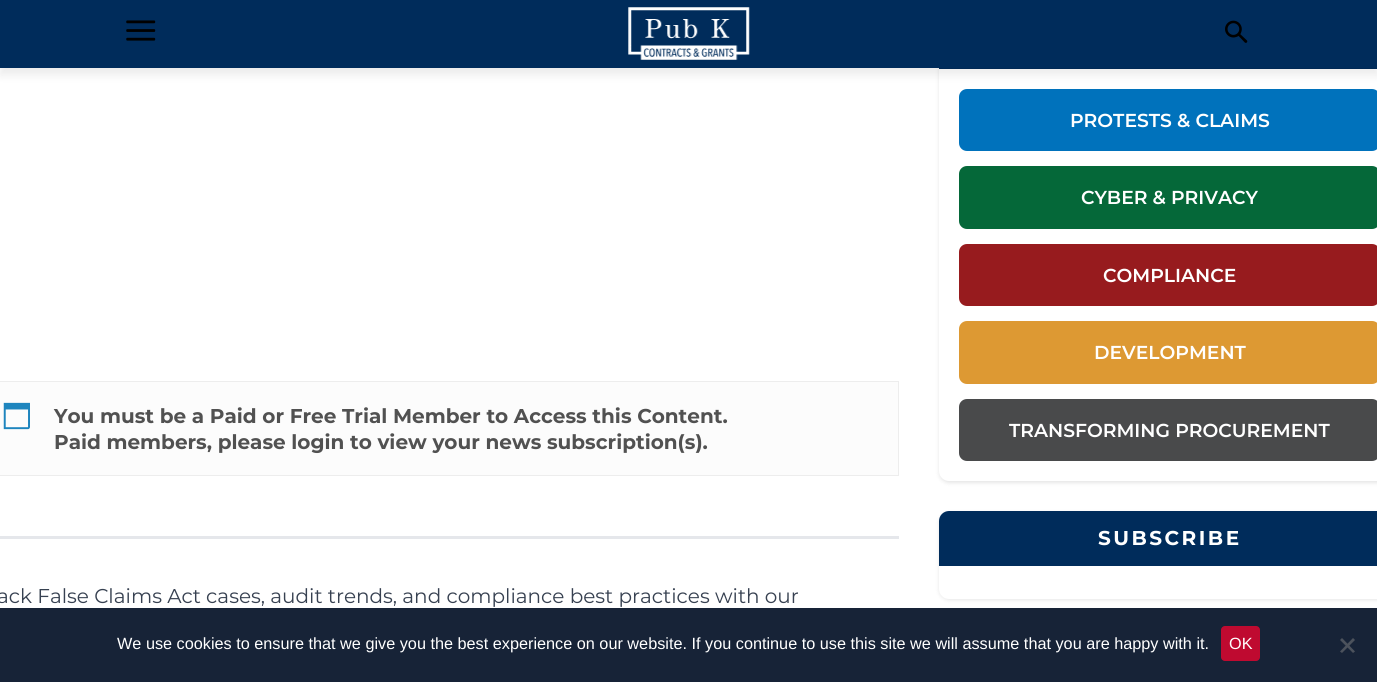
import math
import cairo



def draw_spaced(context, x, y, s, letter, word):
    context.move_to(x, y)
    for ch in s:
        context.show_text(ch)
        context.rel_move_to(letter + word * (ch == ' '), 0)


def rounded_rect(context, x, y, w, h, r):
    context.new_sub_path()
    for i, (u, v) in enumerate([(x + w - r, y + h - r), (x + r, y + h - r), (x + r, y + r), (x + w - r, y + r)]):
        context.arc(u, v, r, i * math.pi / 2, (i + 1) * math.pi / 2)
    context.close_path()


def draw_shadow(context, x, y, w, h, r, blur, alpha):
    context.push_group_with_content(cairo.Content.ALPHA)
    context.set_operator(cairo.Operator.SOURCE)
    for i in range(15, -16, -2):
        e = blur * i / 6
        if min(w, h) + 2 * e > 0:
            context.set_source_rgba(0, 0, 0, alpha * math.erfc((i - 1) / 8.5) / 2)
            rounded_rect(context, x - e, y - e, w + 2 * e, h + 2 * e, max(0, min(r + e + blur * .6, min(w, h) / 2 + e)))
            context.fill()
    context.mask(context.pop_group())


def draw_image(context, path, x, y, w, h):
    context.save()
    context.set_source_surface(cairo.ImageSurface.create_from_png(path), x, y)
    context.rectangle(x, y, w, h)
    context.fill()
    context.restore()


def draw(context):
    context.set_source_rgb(1, 1, 1)
    context.paint()
    context.set_source_rgb(0, 0, 0)
    draw_shadow(context, 939, 16, 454, 467, 10, 2, 0.1)
    context.set_source_rgb(1, 1, 1)
    context.new_path()
    context.move_to(949, 15)
    context.line_to(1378, 15)
    context.line_to(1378, 481)
    context.line_to(949, 481)
    context.curve_to(943.5, 481, 939, 476.5, 939, 471)
    context.line_to(939, 25)
    context.curve_to(939, 19.5, 943.5, 15, 949, 15)
    context.close_path()
    context.fill()
    context.set_source_rgb(0, 44 / 255, 91 / 255)
    context.rectangle(0, 0, 1377, 68)
    context.fill()
    draw_image(context, "images/1.png", 126, 20, 30, 21)
    draw_image(context, "images/2.png", 628, 7, 122, 53)
    context.rectangle(939, 68, 438, 1)
    context.fill()
    context.set_source_rgb(0, 114 / 255, 188 / 255)
    rounded_rect(context, 959, 89, 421, 62, 8)
    context.fill()
    context.save()
    context.set_fill_rule(cairo.FillRule.EVEN_ODD)
    context.new_path()
    context.move_to(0, 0)
    context.line_to(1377, 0)
    context.line_to(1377, 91)
    context.line_to(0, 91)
    context.close_path()
    context.move_to(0, 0)
    context.line_to(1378, 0)
    context.line_to(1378, 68)
    context.line_to(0, 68)
    context.close_path()
    context.clip()
    context.set_source_rgb(0, 0, 0)
    draw_shadow(context, 0, 8, 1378, 67, 0, 5, 0.08)
    context.restore()
    draw_image(context, "images/3.png", 1225, 20, 23, 23)
    context.set_source_rgb(252 / 255, 252 / 255, 252 / 255)
    context.rectangle(-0.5, 381.5, 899, 94)
    context.fill_preserve()
    context.set_source_rgb(237 / 255, 237 / 255, 237 / 255)
    context.set_line_width(1)
    context.stroke()
    draw_image(context, "images/4.png", 3, 402, 27, 28)
    context.set_source_rgb(229 / 255, 231 / 255, 235 / 255)
    context.rectangle(0, 536, 899, 3)
    context.fill()
    context.set_source_rgb(5 / 255, 104 / 255, 57 / 255)
    rounded_rect(context, 959, 166, 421, 63, 8)
    context.fill()
    context.set_source_rgb(151 / 255, 27 / 255, 30 / 255)
    rounded_rect(context, 959, 244, 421, 62, 8)
    context.fill()
    context.set_source_rgb(221 / 255, 153 / 255, 51 / 255)
    rounded_rect(context, 959, 321, 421, 63, 8)
    context.fill()
    context.set_source_rgb(73 / 255, 74 / 255, 75 / 255)
    rounded_rect(context, 959, 399, 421, 62, 8)
    context.fill()
    context.set_source_rgb(0, 0, 0)
    draw_shadow(context, 939, 513, 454, 87, 10, 2, 0.1)
    context.set_source_rgb(1, 1, 1)
    context.new_path()
    context.move_to(949, 511)
    context.line_to(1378, 511)
    context.line_to(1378, 599)
    context.line_to(949, 599)
    context.curve_to(943.5, 599, 939, 594.5, 939, 589)
    context.line_to(939, 521)
    context.curve_to(939, 515.5, 943.5, 511, 949, 511)
    context.close_path()
    context.fill()
    context.set_source_rgb(0, 44 / 255, 91 / 255)
    context.new_path()
    context.move_to(949, 511)
    context.line_to(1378, 511)
    context.line_to(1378, 566)
    context.line_to(939, 566)
    context.line_to(939, 521)
    context.curve_to(939, 515.5, 943.5, 511, 949, 511)
    context.close_path()
    context.fill()
    context.set_source_rgb(23 / 255, 35 / 255, 55 / 255)
    context.rectangle(0, 608, 1377, 74)
    context.fill()
    context.set_source_rgb(191 / 255, 10 / 255, 48 / 255)
    rounded_rect(context, 1221, 626, 39, 35, 4)
    context.fill()
    context.set_source_rgb(76 / 255, 82 / 255, 92 / 255)
    context.new_path()
    context.move_to(1353, 638)
    context.line_to(1355, 640)
    context.line_to(1342, 653)
    context.line_to(1340, 651.5)
    context.close_path()
    context.fill()
    context.new_path()
    context.move_to(1340, 640)
    context.line_to(1342, 638)
    context.line_to(1355, 651.5)
    context.line_to(1353, 653)
    context.close_path()
    context.fill()
    context.select_font_face("Montserrat", cairo.FontSlant.NORMAL, cairo.FontWeight.BOLD)
    context.set_font_size(20)
    context.set_source_rgb(81 / 255, 81 / 255, 81 / 255)
    context.move_to(54, 423)
    context.show_text("You must be a Paid or Free Trial Member to Access this Content.")
    context.move_to(54, 449)
    context.show_text("Paid members, please login to view your news subscription(s).")
    context.select_font_face("Montserrat")
    context.set_source_rgb(55 / 255, 65 / 255, 81 / 255)
    context.move_to(-3, 603)
    context.show_text("ack False Claims Act cases, audit trends, and compliance best practices with our")
    context.select_font_face("Montserrat SemiBold")
    context.set_font_size(18.75)
    context.set_source_rgb(1, 1, 1)
    context.move_to(1070, 127)
    context.show_text("PROTESTS & CLAIMS")
    context.move_to(1081, 204)
    context.show_text("CYBER & PRIVACY")
    context.move_to(1103, 282)
    context.show_text("COMPLIANCE")
    context.move_to(1094, 359)
    context.show_text("DEVELOPMENT")
    context.move_to(1009, 437)
    context.show_text("TRANSFORMING PROCUREMENT")
    context.select_font_face("Montserrat", cairo.FontSlant.NORMAL, cairo.FontWeight.BOLD)
    context.set_font_size(20)
    draw_spaced(context, 1098, 545, "SUBSCRIBE", 2.5, 0)
    context.select_font_face("Liberation Sans")
    context.set_font_size(16.25)
    context.move_to(117, 649)
    context.show_text("We use cookies to ensure that we give you the best experience on our website. If you continue to use this site we will assume that you are happy with it.")
    context.move_to(1229, 649)
    context.show_text("OK")


surface = cairo.ImageSurface(cairo.Format.RGB24, 1377, 682)
context = cairo.Context(surface)
options = cairo.FontOptions()
options.set_hint_metrics(cairo.HintMetrics.OFF)
options.set_hint_style(cairo.HintStyle.NONE)
context.set_font_options(options)
context.set_miter_limit(4)
draw(context)
surface.write_to_png("out.png")
